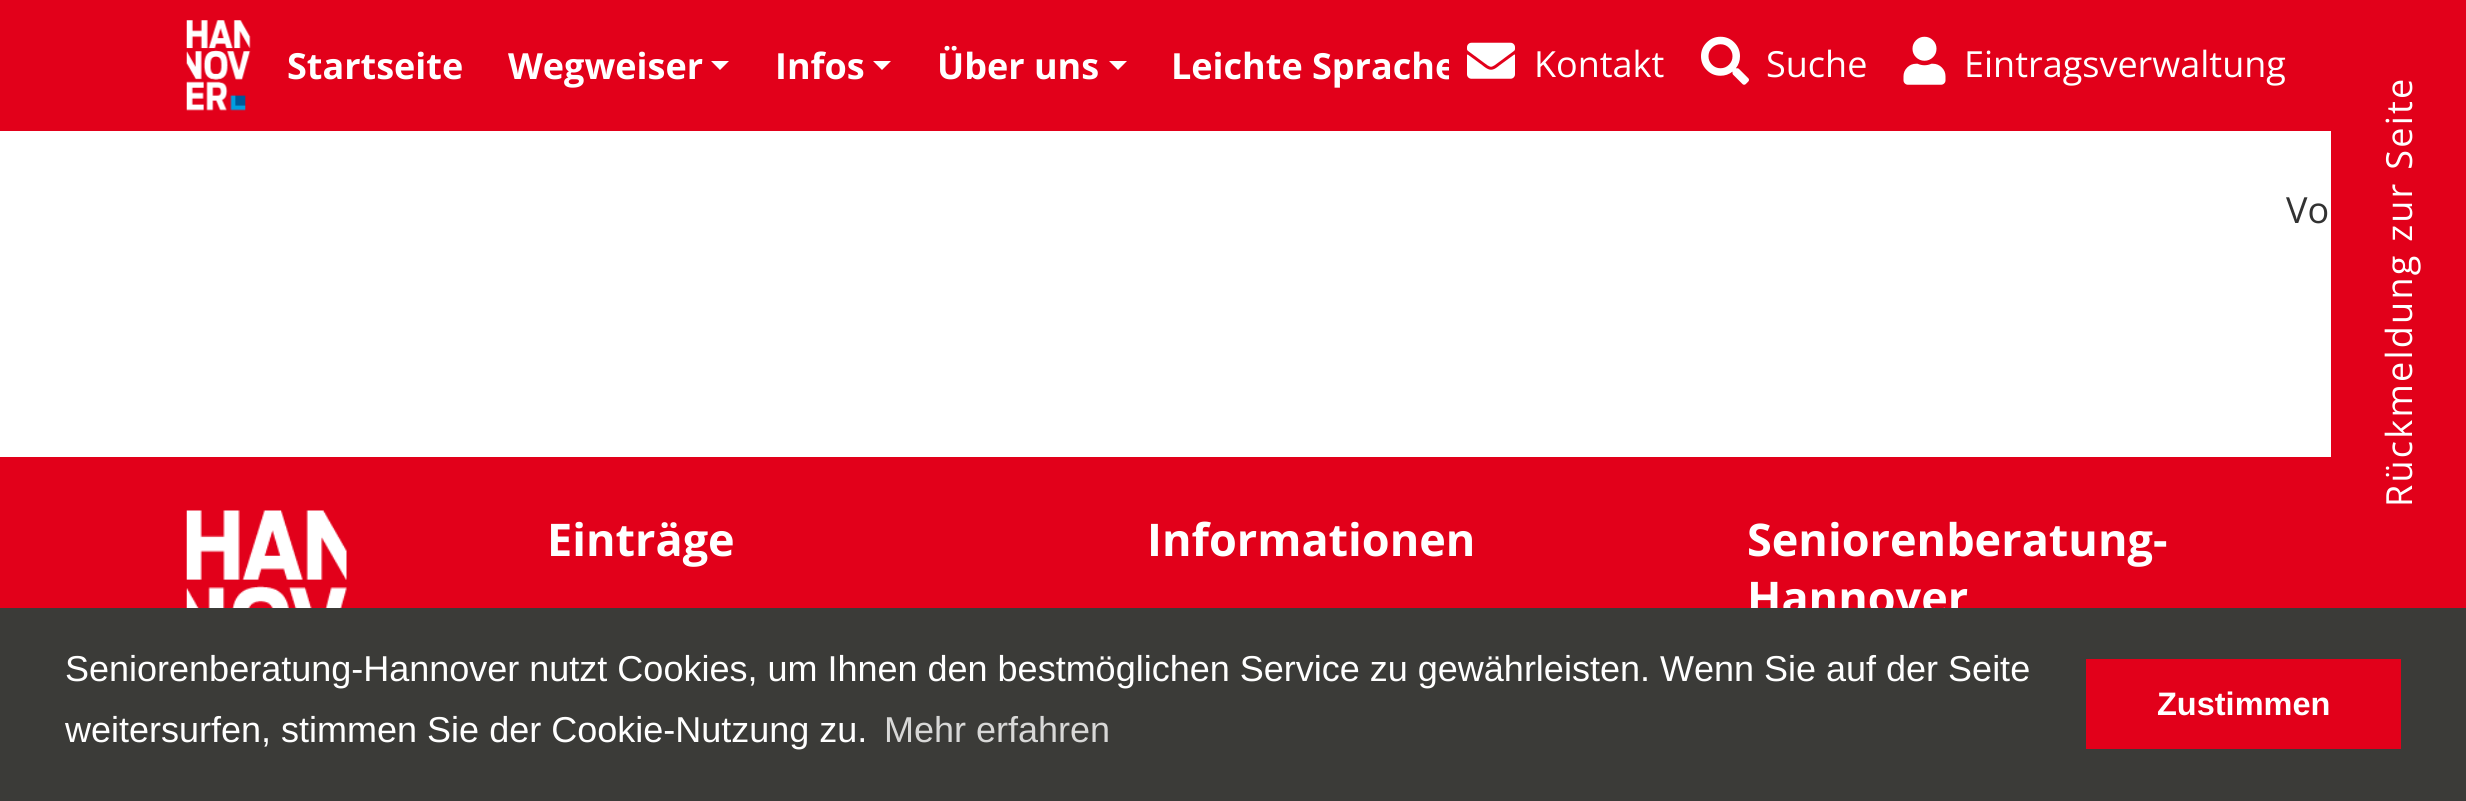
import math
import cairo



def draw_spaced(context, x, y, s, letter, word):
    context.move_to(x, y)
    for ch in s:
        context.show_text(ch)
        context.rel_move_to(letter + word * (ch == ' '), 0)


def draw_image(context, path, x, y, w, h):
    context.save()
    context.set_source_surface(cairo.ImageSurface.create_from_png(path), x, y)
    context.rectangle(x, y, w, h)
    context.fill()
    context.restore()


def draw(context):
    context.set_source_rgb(1, 1, 1)
    context.paint()
    context.set_source_rgb(226 / 255, 0, 26 / 255)
    context.rectangle(0, 0, 2331, 131)
    context.fill()
    draw_image(context, "images/1.png", 186, 20, 65, 91)
    context.set_source_rgb(1, 1, 1)
    context.new_path()
    context.move_to(711, 61)
    context.line_to(729, 61)
    context.line_to(720, 70)
    context.close_path()
    context.fill()
    context.new_path()
    context.move_to(873, 61)
    context.line_to(891, 61)
    context.line_to(882, 70)
    context.close_path()
    context.fill()
    context.new_path()
    context.move_to(1109, 61)
    context.line_to(1127, 61)
    context.line_to(1118, 70)
    context.close_path()
    context.fill()
    draw_image(context, "images/2.png", 1467, 42, 48, 37)
    draw_image(context, "images/3.png", 1701, 36, 48, 49)
    draw_image(context, "images/4.png", 1903, 36, 43, 49)
    context.set_source_rgb(226 / 255, 0, 26 / 255)
    context.rectangle(0, 457, 2334, 151)
    context.fill()
    context.new_path()
    context.move_to(2331, 596)
    context.line_to(2331, -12)
    context.curve_to(2331, -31, 2346, -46, 2365, -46)
    context.line_to(2466, -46)
    context.line_to(2466, 629)
    context.line_to(2365, 629)
    context.curve_to(2346, 629, 2331, 614, 2331, 596)
    context.close_path()
    context.fill()
    draw_image(context, "images/5.png", 186, 510, 161, 98)
    context.select_font_face("Open Sans", cairo.FontSlant.NORMAL, cairo.FontWeight.BOLD)
    context.set_font_size(36)
    context.set_source_rgb(1, 1, 1)
    context.move_to(287, 79)
    context.show_text("Startseite")
    context.move_to(508, 79)
    context.show_text("Wegweiser")
    context.move_to(775, 79)
    context.show_text("Infos")
    context.move_to(937, 79)
    context.show_text("Über uns")
    context.move_to(1171, 79)
    context.show_text("Leichte Sprache")
    context.set_source_rgb(226 / 255, 0, 26 / 255)
    context.rectangle(1449, 59, 6, 21)
    context.fill()
    context.select_font_face("Open Sans")
    context.set_source_rgb(1, 1, 1)
    context.move_to(1534, 77)
    context.show_text("Kontakt")
    context.move_to(1766, 77)
    context.show_text("Suche")
    context.move_to(1964, 77)
    context.show_text("Eintragsverwaltung")
    context.set_source_rgb(50 / 255, 50 / 255, 50 / 255)
    context.move_to(2286, 223)
    context.show_text("Vo")
    context.set_source_rgb(1, 1, 1)
    context.save()
    context.translate(2412, 507)
    context.rotate(-90 * math.pi / 180)
    draw_spaced(context, 0, 0, "Rückmeldung zur Seite", 2.25, 0)
    context.restore()
    context.select_font_face("Open Sans", cairo.FontSlant.NORMAL, cairo.FontWeight.BOLD)
    context.set_font_size(45)
    context.move_to(547, 556)
    context.show_text("Einträge")
    context.move_to(1147, 556)
    context.show_text("Informationen")
    context.move_to(1747, 556)
    context.show_text("Seniorenberatung-")
    context.move_to(1747, 614)
    context.show_text("Hannover")
    context.set_source_rgb(59 / 255, 59 / 255, 56 / 255)
    context.rectangle(0, 608, 2466, 193)
    context.fill()
    context.select_font_face("Liberation Sans")
    context.set_font_size(36)
    context.set_source_rgb(1, 1, 1)
    context.move_to(65, 681)
    context.show_text("Seniorenberatung-Hannover nutzt Cookies, um Ihnen den bestmöglichen Service zu gewährleisten. Wenn Sie auf der Seite")
    context.move_to(65, 742)
    context.show_text("weitersurfen, stimmen Sie der Cookie-Nutzung zu.")
    context.set_source_rgb(216 / 255, 216 / 255, 215 / 255)
    context.move_to(884, 742)
    context.show_text("Mehr erfahren")
    context.set_source_rgb(226 / 255, 0, 26 / 255)
    context.rectangle(2086, 659, 315, 90)
    context.fill()
    context.select_font_face("Liberation Sans", cairo.FontSlant.NORMAL, cairo.FontWeight.BOLD)
    context.set_font_size(32.5)
    context.set_source_rgb(1, 1, 1)
    context.move_to(2157, 715)
    context.show_text("Zustimmen")


surface = cairo.ImageSurface(cairo.Format.RGB24, 2466, 801)
context = cairo.Context(surface)
options = cairo.FontOptions()
options.set_hint_metrics(cairo.HintMetrics.OFF)
options.set_hint_style(cairo.HintStyle.NONE)
context.set_font_options(options)
context.set_miter_limit(4)
draw(context)
surface.write_to_png("out.png")
